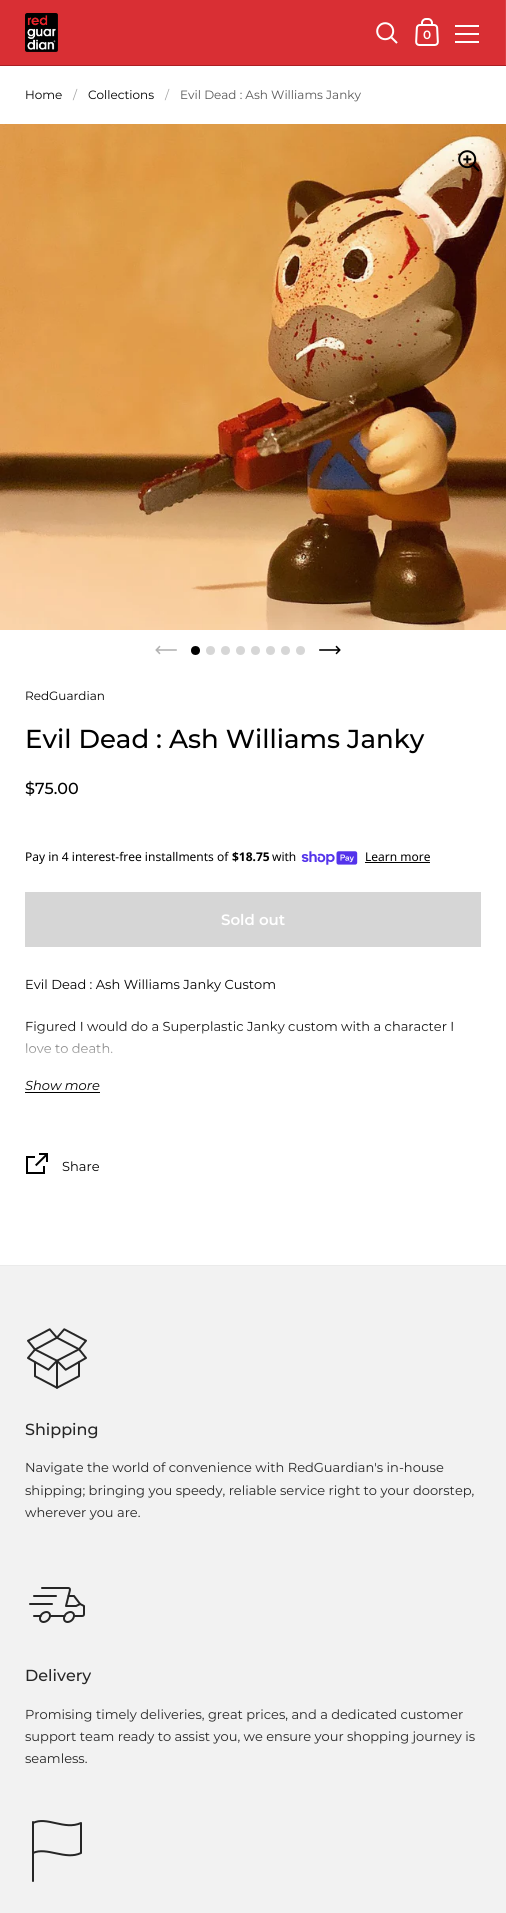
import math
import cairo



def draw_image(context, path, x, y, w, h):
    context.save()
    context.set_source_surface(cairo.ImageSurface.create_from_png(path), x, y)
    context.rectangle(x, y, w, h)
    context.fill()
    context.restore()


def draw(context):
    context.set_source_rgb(1, 1, 1)
    context.paint()
    context.set_source_rgb(171 / 255, 31 / 255, 35 / 255)
    context.rectangle(0, 65, 506, 1)
    context.fill()
    context.set_source_rgb(217 / 255, 47 / 255, 52 / 255)
    context.rectangle(0, 0, 505, 65)
    context.fill()
    context.set_source_rgb(220 / 255, 64 / 255, 68 / 255)
    context.rectangle(505, 0, 1, 65)
    context.fill()
    draw_image(context, "images/1.png", 25, 13, 33, 39)
    draw_image(context, "images/2.png", 376, 22, 22, 22)
    draw_image(context, "images/3.png", 415, 18, 24, 28)
    context.set_source_rgb(1, 1, 1)
    context.rectangle(455, 25, 24, 2)
    context.fill()
    context.rectangle(455, 33, 24, 2)
    context.fill()
    context.rectangle(455, 41, 24, 2)
    context.fill()
    context.set_source_rgb(235 / 255, 235 / 255, 235 / 255)
    context.rectangle(0, 1265, 506, 1)
    context.fill()
    draw_image(context, "images/4.png", 0, 124, 506, 506)
    draw_image(context, "images/5.png", 458, 150, 22, 22)
    draw_image(context, "images/6.png", 155, 645, 22, 10)
    context.set_source_rgb(0, 0, 0)
    context.arc(195.5, 650.5, 4.5, 0, 2 * math.pi)
    context.fill()
    context.set_source_rgb(214 / 255, 214 / 255, 214 / 255)
    context.arc(210.5, 650.5, 4.5, 0, 2 * math.pi)
    context.fill()
    context.arc(225.5, 650.5, 4.5, 0, 2 * math.pi)
    context.fill()
    context.arc(240.5, 650.5, 4.5, 0, 2 * math.pi)
    context.fill()
    context.arc(255.5, 650.5, 4.5, 0, 2 * math.pi)
    context.fill()
    context.arc(270.5, 650.5, 4.5, 0, 2 * math.pi)
    context.fill()
    context.arc(285.5, 650.5, 4.5, 0, 2 * math.pi)
    context.fill()
    context.arc(300.5, 650.5, 4.5, 0, 2 * math.pi)
    context.fill()
    draw_image(context, "images/7.png", 319, 645, 22, 10)
    draw_image(context, "images/8.png", 301, 851, 57, 14)
    context.set_source_rgb(0, 0, 0)
    context.rectangle(365, 862, 65, 1)
    context.fill()
    context.set_source_rgb(214 / 255, 214 / 255, 214 / 255)
    context.rectangle(25, 892, 456, 55)
    context.fill()
    context.set_source_rgb(0, 0, 0)
    context.rectangle(25, 1092, 75, 1)
    context.fill()
    draw_image(context, "images/9.png", 26, 1153, 22, 21)
    context.set_source_rgb(242 / 255, 242 / 255, 242 / 255)
    context.rectangle(0, 1266, 506, 647)
    context.fill()
    draw_image(context, "images/10.png", 27, 1328, 60, 61)
    draw_image(context, "images/11.png", 29, 1587, 56, 36)
    context.new_path()
    context.move_to(33, 1823)
    context.curve_to(46.5, 1816, 64.5, 1830.5, 81, 1823)
    context.line_to(81, 1853)
    context.curve_to(65.5, 1860.5, 46.5, 1846.5, 33, 1853)
    context.move_to(33, 1881)
    context.line_to(33, 1822)
    context.set_source_rgb(38 / 255, 38 / 255, 38 / 255)
    context.set_line_cap(cairo.LineCap.ROUND)
    context.set_line_join(cairo.LineJoin.ROUND)
    context.stroke()
    context.select_font_face("Montserrat SemiBold")
    context.set_font_size(12)
    context.set_source_rgb(1, 1, 1)
    context.move_to(423, 39)
    context.show_text("0")
    context.select_font_face("Montserrat")
    context.set_source_rgb(0, 0, 0)
    context.move_to(25, 99)
    context.show_text("Home")
    context.set_source_rgb(163 / 255, 163 / 255, 163 / 255)
    context.move_to(73, 99)
    context.show_text("/")
    context.set_source_rgb(0, 0, 0)
    context.move_to(88, 99)
    context.show_text("Collections")
    context.set_source_rgb(163 / 255, 163 / 255, 163 / 255)
    context.move_to(165, 99)
    context.show_text("/")
    context.set_source_rgb(87 / 255, 87 / 255, 87 / 255)
    context.move_to(180, 99)
    context.show_text("Evil Dead : Ash Williams Janky")
    context.set_source_rgb(0, 0, 0)
    context.move_to(25, 700)
    context.show_text("RedGuardian")
    context.select_font_face("Montserrat Medium")
    context.set_font_size(26)
    context.move_to(25, 748)
    context.show_text("Evil Dead : Ash Williams Janky")
    context.set_font_size(16)
    context.move_to(25, 794)
    context.show_text("$75.00")
    context.select_font_face("Noto Sans")
    context.set_font_size(12)
    context.move_to(25, 861)
    context.show_text("Pay in 4 interest-free installments of")
    context.select_font_face("Noto Sans", cairo.FontSlant.NORMAL, cairo.FontWeight.BOLD)
    context.move_to(232, 861)
    context.show_text("$18.75")
    context.select_font_face("Noto Sans")
    context.move_to(272, 861)
    context.show_text("with")
    context.move_to(365, 861)
    context.show_text("Learn more")
    context.select_font_face("Montserrat SemiBold")
    context.set_font_size(15)
    context.set_source_rgb(1, 1, 1)
    context.move_to(221, 925)
    context.show_text("Sold out")
    context.select_font_face("Montserrat")
    context.set_font_size(13)
    context.set_source_rgb(0, 0, 0)
    context.move_to(25, 989)
    context.show_text("Evil Dead : Ash Williams Janky Custom")
    context.move_to(25, 1031)
    context.show_text("Figured I would do a Superplastic Janky custom with a character I")
    context.move_to(25, 1053)
    context.show_text("love to death.")
    gradient = cairo.LinearGradient(253, 1073, 253, 1023)
    gradient.add_color_stop_rgba(0, 1, 1, 1, 1)
    gradient.add_color_stop_rgba(0.1, 1, 1, 1, 1)
    gradient.add_color_stop_rgba(1, 1, 1, 1, 0)
    context.set_source(gradient)
    context.rectangle(26, 1024, 427, 30)
    context.fill()
    context.select_font_face("Montserrat", cairo.FontSlant.ITALIC)
    context.set_source_rgb(0, 0, 0)
    context.move_to(25, 1090)
    context.show_text("Show more")
    context.select_font_face("Montserrat")
    context.move_to(62, 1171)
    context.show_text("Share")
    context.select_font_face("Montserrat Medium")
    context.set_font_size(16)
    context.set_source_rgb(38 / 255, 38 / 255, 38 / 255)
    context.move_to(25, 1435)
    context.show_text("Shipping")
    context.select_font_face("Montserrat")
    context.set_font_size(13)
    context.move_to(25, 1472)
    context.show_text("Navigate the world of convenience with RedGuardian's in-house")
    context.move_to(25, 1495)
    context.show_text("shipping; bringing you speedy, reliable service right to your doorstep,")
    context.move_to(25, 1517)
    context.show_text("wherever you are.")
    context.select_font_face("Montserrat Medium")
    context.set_font_size(16)
    context.move_to(25, 1681)
    context.show_text("Delivery")
    context.select_font_face("Montserrat")
    context.set_font_size(13)
    context.move_to(25, 1719)
    context.show_text("Promising timely deliveries, great prices, and a dedicated customer")
    context.move_to(25, 1741)
    context.show_text("support team ready to assist you, we ensure your shopping journey is")
    context.move_to(25, 1763)
    context.show_text("seamless.")


surface = cairo.ImageSurface(cairo.Format.RGB24, 506, 1913)
context = cairo.Context(surface)
options = cairo.FontOptions()
options.set_hint_metrics(cairo.HintMetrics.OFF)
options.set_hint_style(cairo.HintStyle.NONE)
context.set_font_options(options)
context.set_miter_limit(4)
draw(context)
surface.write_to_png("out.png")
